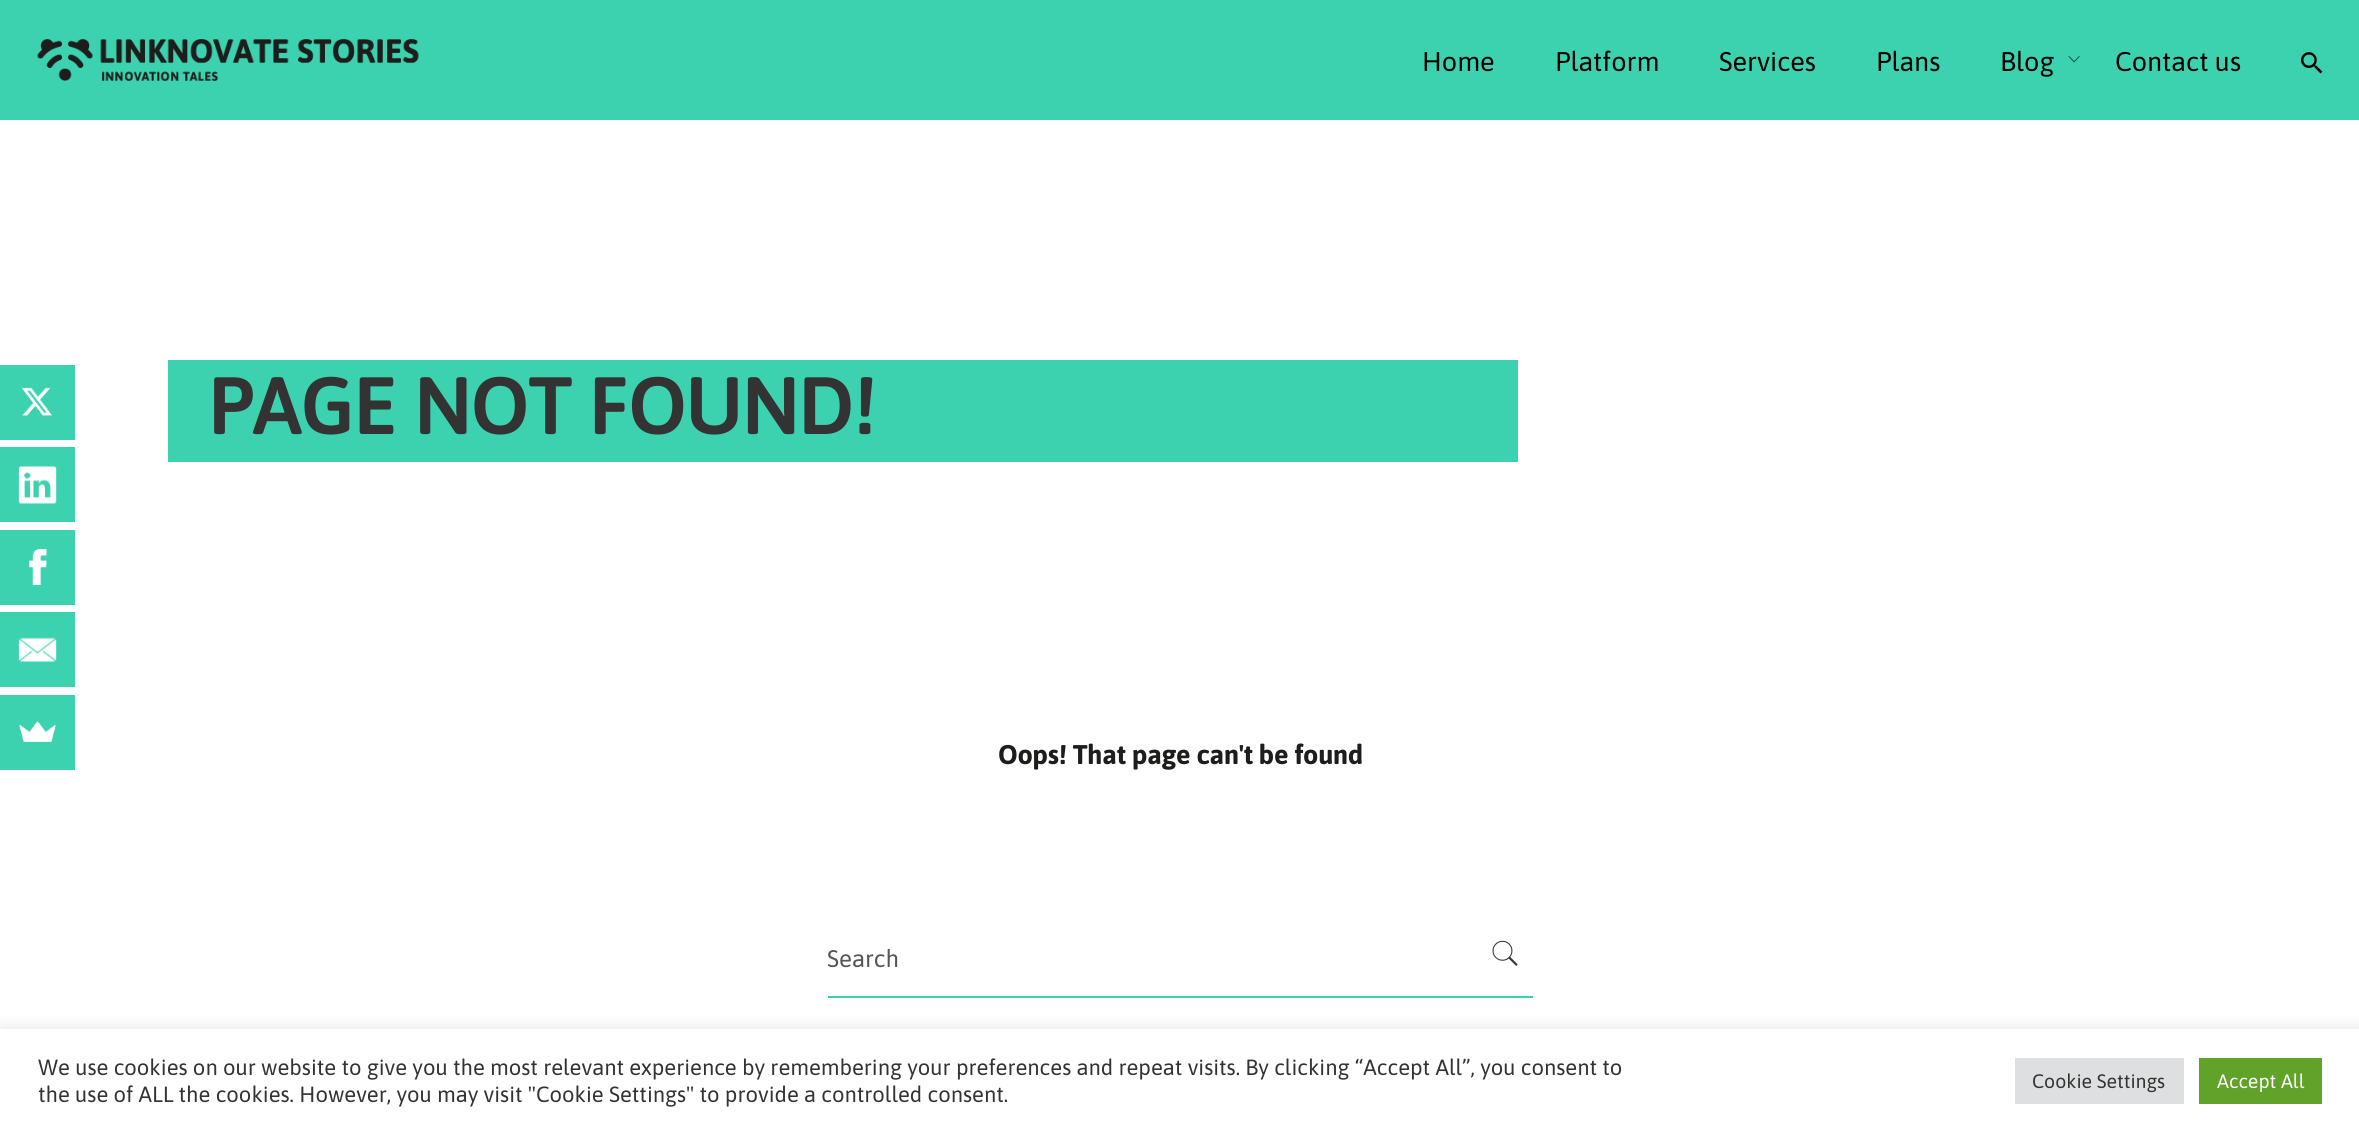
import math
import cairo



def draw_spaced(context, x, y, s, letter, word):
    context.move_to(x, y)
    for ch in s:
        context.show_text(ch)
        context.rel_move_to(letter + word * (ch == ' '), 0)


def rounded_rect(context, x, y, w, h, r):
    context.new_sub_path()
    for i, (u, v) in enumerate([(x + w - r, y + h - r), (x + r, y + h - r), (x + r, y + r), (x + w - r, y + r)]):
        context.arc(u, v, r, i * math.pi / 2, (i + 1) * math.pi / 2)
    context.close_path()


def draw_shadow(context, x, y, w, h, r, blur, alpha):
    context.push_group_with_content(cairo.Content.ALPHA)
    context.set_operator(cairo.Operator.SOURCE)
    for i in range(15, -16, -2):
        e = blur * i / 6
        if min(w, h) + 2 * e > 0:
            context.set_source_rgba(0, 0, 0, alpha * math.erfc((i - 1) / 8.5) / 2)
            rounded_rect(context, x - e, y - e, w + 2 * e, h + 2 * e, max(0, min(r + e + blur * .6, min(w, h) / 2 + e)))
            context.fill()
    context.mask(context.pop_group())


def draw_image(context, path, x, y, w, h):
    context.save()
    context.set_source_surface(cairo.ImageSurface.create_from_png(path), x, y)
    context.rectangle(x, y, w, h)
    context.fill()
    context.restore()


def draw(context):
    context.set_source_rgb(1, 1, 1)
    context.paint()
    context.set_source_rgb(60 / 255, 210 / 255, 175 / 255)
    context.rectangle(0, 365, 75, 75)
    context.fill()
    draw_image(context, "images/1.png", 21, 387, 31, 29)
    context.rectangle(0, 447, 75, 75)
    context.fill()
    draw_image(context, "images/2.png", 18, 466, 39, 38)
    context.rectangle(0, 530, 75, 75)
    context.fill()
    draw_image(context, "images/3.png", 29, 549, 18, 36)
    context.rectangle(0, 612, 75, 75)
    context.fill()
    draw_image(context, "images/4.png", 18, 637, 39, 25)
    context.rectangle(0, 695, 75, 75)
    context.fill()
    draw_image(context, "images/5.png", 19, 721, 37, 21)
    context.rectangle(0, 0, 2359, 120)
    context.fill()
    draw_image(context, "images/6.png", 37, 39, 382, 42)
    draw_image(context, "images/7.png", 2068, 56, 12, 7)
    draw_image(context, "images/8.png", 2301, 52, 22, 22)
    context.rectangle(168, 360, 1350, 102)
    context.fill()
    context.rectangle(828, 996, 705, 2)
    context.fill()
    draw_image(context, "images/9.png", 1492, 940, 26, 26)
    context.set_source_rgb(172 / 255, 171 / 255, 171 / 255)
    draw_shadow(context, 0, 1028, 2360, 103, 0, 7.5, 0.3)
    context.set_source_rgb(1, 1, 1)
    context.rectangle(0, 1029, 2359, 103)
    context.fill()
    context.set_source_rgb(222 / 255, 223 / 255, 224 / 255)
    context.rectangle(2015, 1058, 169, 46)
    context.fill()
    context.set_source_rgb(97 / 255, 162 / 255, 41 / 255)
    context.rectangle(2199, 1058, 123, 46)
    context.fill()
    context.select_font_face("Asap")
    context.set_font_size(27)
    context.set_source_rgb(0, 0, 0)
    context.move_to(1422, 71)
    context.show_text("Home")
    context.move_to(1555, 71)
    context.show_text("Platform")
    context.move_to(1719, 71)
    context.show_text("Services")
    context.move_to(1876, 71)
    context.show_text("Plans")
    context.move_to(2000, 71)
    context.show_text("Blog")
    context.move_to(2115, 71)
    context.show_text("Contact us")
    context.select_font_face("Asap SemiBold")
    context.set_font_size(81)
    context.set_source_rgb(51 / 255, 51 / 255, 51 / 255)
    draw_spaced(context, 208, 434, "PAGE NOT FOUND!", -1.6, 0)
    context.select_font_face("Asap", cairo.FontSlant.NORMAL, cairo.FontWeight.BOLD)
    context.set_font_size(27)
    context.set_source_rgb(29 / 255, 29 / 255, 27 / 255)
    draw_spaced(context, 998, 764, "Oops! That page can't be found", -0.25, 0)
    context.select_font_face("Asap")
    context.set_font_size(24)
    context.set_source_rgb(85 / 255, 85 / 255, 85 / 255)
    context.move_to(827, 967)
    context.show_text("Search")
    context.set_font_size(22)
    context.set_source_rgb(51 / 255, 51 / 255, 51 / 255)
    context.move_to(38, 1075)
    context.show_text("We use cookies on our website to give you the most relevant experience by remembering your preferences and repeat visits. By clicking “Accept All”, you consent to")
    context.move_to(38, 1102)
    context.show_text("the use of ALL the cookies. However, you may visit \"Cookie Settings\" to provide a controlled consent.")
    context.set_font_size(19.5)
    context.move_to(2032, 1088)
    context.show_text("Cookie Settings")
    context.set_source_rgb(1, 1, 1)
    context.move_to(2217, 1088)
    context.show_text("Accept All")


surface = cairo.ImageSurface(cairo.Format.RGB24, 2359, 1132)
context = cairo.Context(surface)
options = cairo.FontOptions()
options.set_hint_metrics(cairo.HintMetrics.OFF)
options.set_hint_style(cairo.HintStyle.NONE)
context.set_font_options(options)
context.set_miter_limit(4)
draw(context)
surface.write_to_png("out.png")
